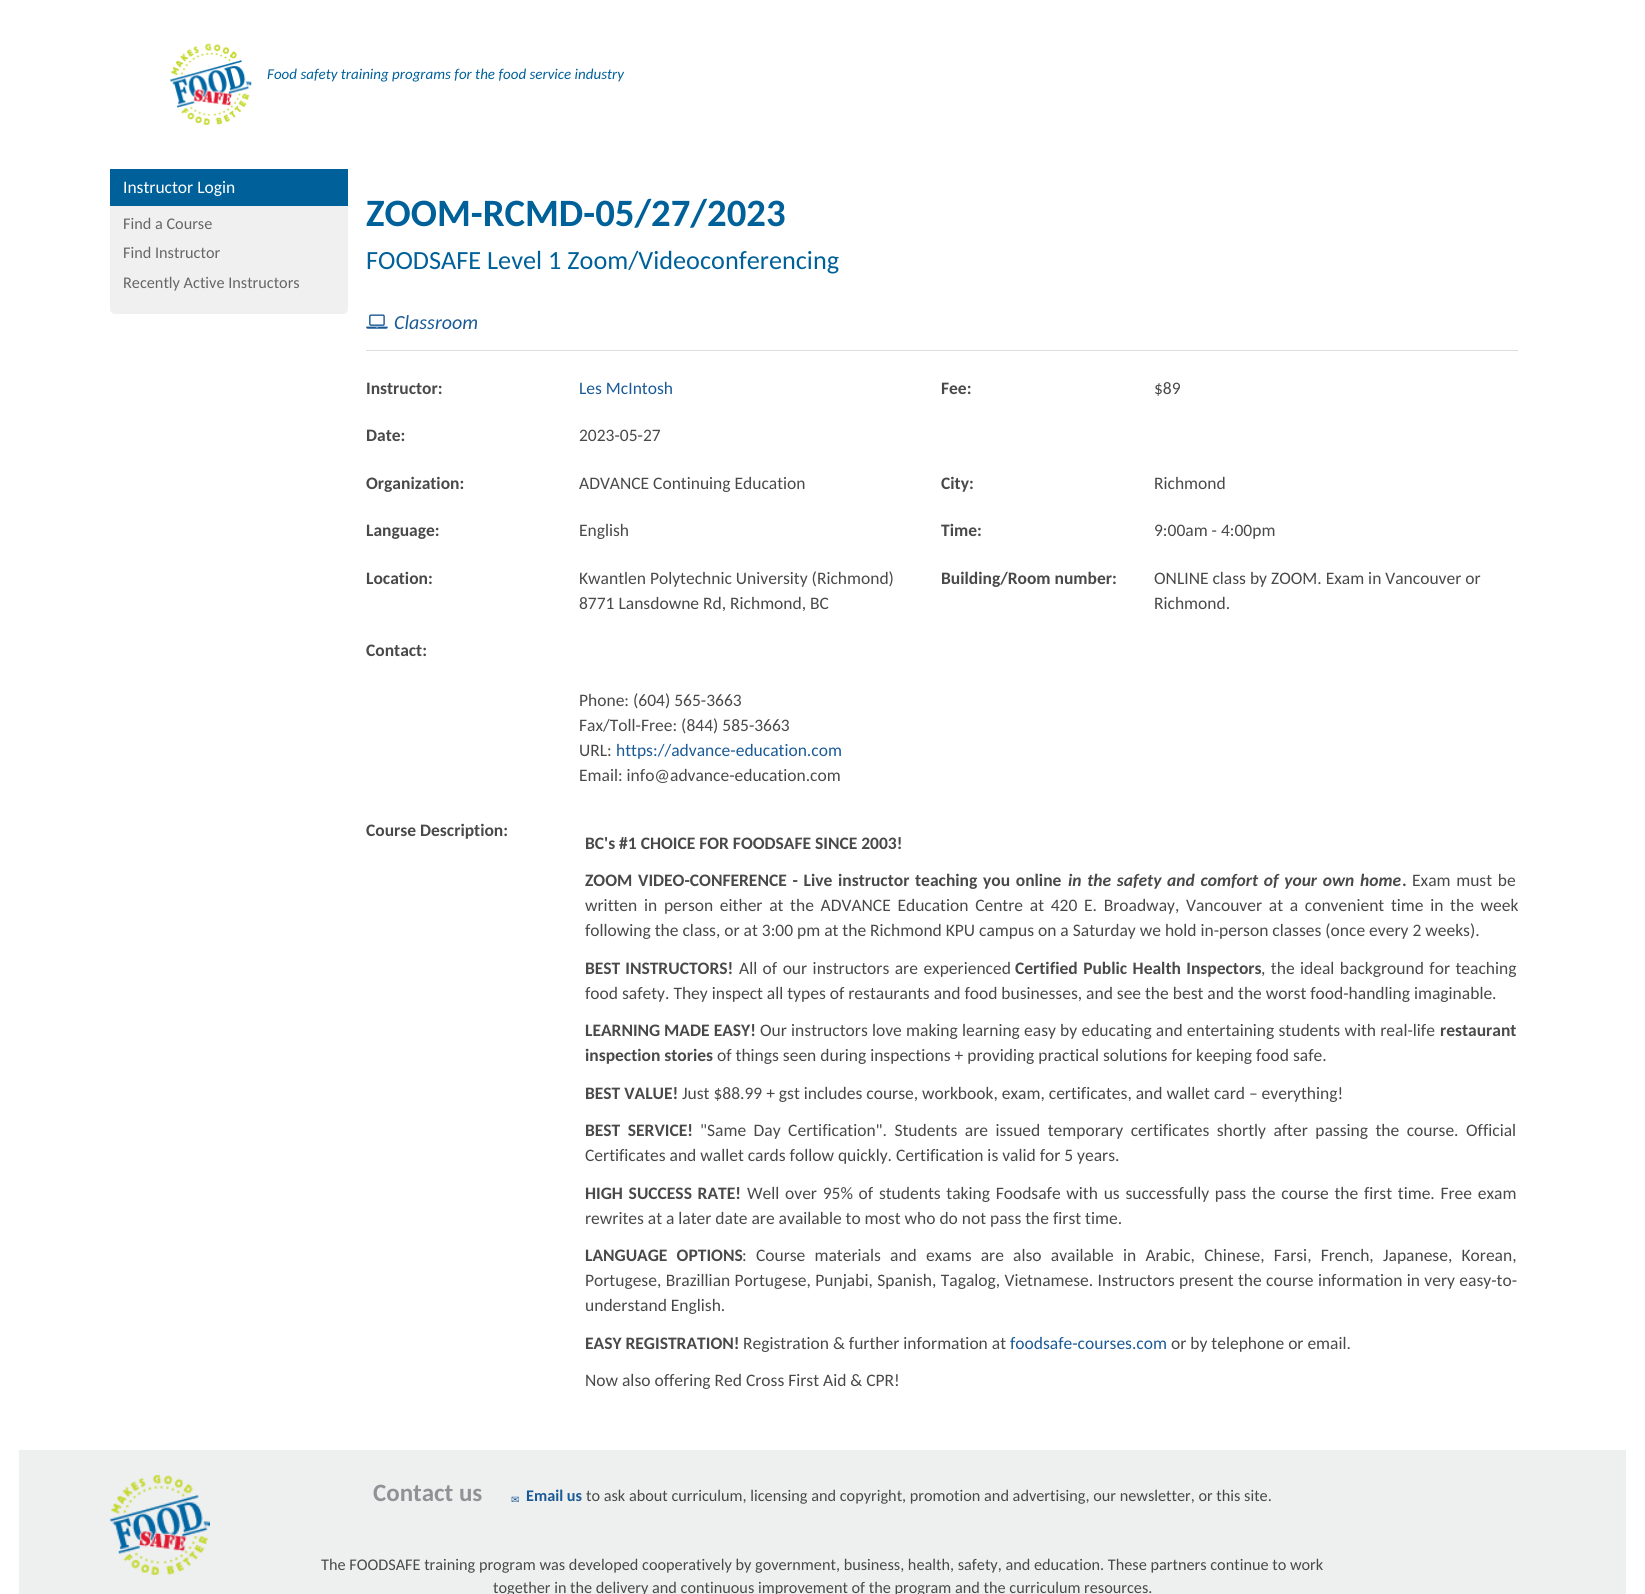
import math
import cairo



def draw_spaced(context, x, y, s, letter, word):
    context.move_to(x, y)
    for ch in s:
        context.show_text(ch)
        context.rel_move_to(letter + word * (ch == ' '), 0)


def rounded_rect(context, x, y, w, h, r):
    context.new_sub_path()
    for i, (u, v) in enumerate([(x + w - r, y + h - r), (x + r, y + h - r), (x + r, y + r), (x + w - r, y + r)]):
        context.arc(u, v, r, i * math.pi / 2, (i + 1) * math.pi / 2)
    context.close_path()


def draw_image(context, path, x, y, w, h):
    context.save()
    context.set_source_surface(cairo.ImageSurface.create_from_png(path), x, y)
    context.rectangle(x, y, w, h)
    context.fill()
    context.restore()


def draw(context):
    context.set_source_rgb(1, 1, 1)
    context.paint()
    draw_image(context, "images/1.png", 170, 43, 82, 82)
    context.set_source_rgb(240 / 255, 240 / 255, 240 / 255)
    rounded_rect(context, 110, 169, 238, 145, 5)
    context.fill()
    context.set_source_rgb(0, 97 / 255, 154 / 255)
    context.rectangle(110, 169, 238, 37)
    context.fill()
    context.set_source_rgb(221 / 255, 221 / 255, 221 / 255)
    context.rectangle(366, 350, 1152, 1)
    context.fill()
    draw_image(context, "images/2.png", 366, 314, 22, 15)
    context.set_source_rgb(238 / 255, 239 / 255, 239 / 255)
    context.rectangle(19, 1450, 1607, 144)
    context.fill()
    draw_image(context, "images/3.png", 110, 1475, 100, 100)
    context.select_font_face("Carlito", cairo.FontSlant.ITALIC)
    context.set_font_size(15)
    context.set_source_rgb(0, 97 / 255, 154 / 255)
    context.move_to(267, 79)
    context.show_text("Food safety training programs for the food service industry")
    context.select_font_face("Carlito")
    context.set_font_size(17.5)
    context.set_source_rgb(1, 1, 1)
    context.move_to(123, 193)
    context.show_text("Instructor Login")
    context.set_font_size(16.25)
    context.set_source_rgb(102 / 255, 102 / 255, 102 / 255)
    context.move_to(123, 229)
    context.show_text("Find a Course")
    context.move_to(123, 258)
    context.show_text("Find Instructor")
    context.move_to(123, 288)
    context.show_text("Recently Active Instructors")
    context.select_font_face("Carlito", cairo.FontSlant.NORMAL, cairo.FontWeight.BOLD)
    context.set_font_size(38.75)
    context.set_source_rgb(0, 97 / 255, 154 / 255)
    context.move_to(366, 226)
    context.show_text("ZOOM-RCMD-05/27/2023")
    context.select_font_face("Carlito")
    context.set_font_size(26.25)
    context.move_to(366, 269)
    context.show_text("FOODSAFE Level 1 Zoom/Videoconferencing")
    context.select_font_face("Carlito", cairo.FontSlant.ITALIC)
    context.set_font_size(20)
    context.set_source_rgb(26 / 255, 90 / 255, 150 / 255)
    context.move_to(394, 329)
    context.show_text("Classroom")
    context.select_font_face("Carlito", cairo.FontSlant.NORMAL, cairo.FontWeight.BOLD)
    context.set_font_size(17.5)
    context.set_source_rgb(73 / 255, 73 / 255, 73 / 255)
    context.move_to(366, 394)
    context.show_text("Instructor:")
    context.select_font_face("Carlito")
    context.set_source_rgb(26 / 255, 90 / 255, 150 / 255)
    context.move_to(579, 394)
    context.show_text("Les McIntosh")
    context.select_font_face("Carlito", cairo.FontSlant.NORMAL, cairo.FontWeight.BOLD)
    context.set_source_rgb(73 / 255, 73 / 255, 73 / 255)
    context.move_to(941, 394)
    context.show_text("Fee:")
    context.select_font_face("Carlito")
    context.move_to(1154, 394)
    context.show_text("$89")
    context.select_font_face("Carlito", cairo.FontSlant.NORMAL, cairo.FontWeight.BOLD)
    context.move_to(366, 441)
    context.show_text("Date:")
    context.select_font_face("Carlito")
    context.move_to(579, 441)
    context.show_text("2023-05-27")
    context.select_font_face("Carlito", cairo.FontSlant.NORMAL, cairo.FontWeight.BOLD)
    context.move_to(366, 489)
    context.show_text("Organization:")
    context.select_font_face("Carlito")
    context.move_to(579, 489)
    context.show_text("ADVANCE Continuing Education")
    context.select_font_face("Carlito", cairo.FontSlant.NORMAL, cairo.FontWeight.BOLD)
    context.move_to(941, 489)
    context.show_text("City:")
    context.select_font_face("Carlito")
    context.move_to(1154, 489)
    context.show_text("Richmond")
    context.select_font_face("Carlito", cairo.FontSlant.NORMAL, cairo.FontWeight.BOLD)
    context.move_to(366, 536)
    context.show_text("Language:")
    context.select_font_face("Carlito")
    context.move_to(579, 536)
    context.show_text("English")
    context.select_font_face("Carlito", cairo.FontSlant.NORMAL, cairo.FontWeight.BOLD)
    context.move_to(941, 536)
    context.show_text("Time:")
    context.select_font_face("Carlito")
    context.move_to(1154, 536)
    context.show_text("9:00am - 4:00pm")
    context.select_font_face("Carlito", cairo.FontSlant.NORMAL, cairo.FontWeight.BOLD)
    context.move_to(366, 584)
    context.show_text("Location:")
    context.select_font_face("Carlito")
    context.move_to(579, 584)
    context.show_text("Kwantlen Polytechnic University (Richmond)")
    context.move_to(579, 609)
    context.show_text("8771 Lansdowne Rd, Richmond, BC")
    context.select_font_face("Carlito", cairo.FontSlant.NORMAL, cairo.FontWeight.BOLD)
    context.move_to(941, 584)
    context.show_text("Building/Room number:")
    context.select_font_face("Carlito")
    context.move_to(1154, 584)
    context.show_text("ONLINE class by ZOOM. Exam in Vancouver or")
    context.move_to(1154, 609)
    context.show_text("Richmond.")
    context.select_font_face("Carlito", cairo.FontSlant.NORMAL, cairo.FontWeight.BOLD)
    context.move_to(366, 656)
    context.show_text("Contact:")
    context.select_font_face("Carlito")
    context.move_to(579, 706)
    context.show_text("Phone: (604) 565-3663")
    context.move_to(579, 731)
    context.show_text("Fax/Toll-Free: (844) 585-3663")
    context.move_to(579, 756)
    context.show_text("URL:")
    context.set_source_rgb(26 / 255, 90 / 255, 150 / 255)
    context.move_to(616, 756)
    context.show_text("https://advance-education.com")
    context.set_source_rgb(73 / 255, 73 / 255, 73 / 255)
    context.move_to(579, 781)
    context.show_text("Email: info@advance-education.com")
    context.select_font_face("Carlito", cairo.FontSlant.NORMAL, cairo.FontWeight.BOLD)
    context.move_to(366, 836)
    context.show_text("Course Description:")
    context.move_to(585, 849)
    context.show_text("BC's #1 CHOICE FOR FOODSAFE SINCE 2003!")
    draw_spaced(context, 585, 886, "ZOOM VIDEO-CONFERENCE - Live instructor teaching you online", 0, 1.75)
    context.select_font_face("Carlito", cairo.FontSlant.ITALIC, cairo.FontWeight.BOLD)
    draw_spaced(context, 1068, 886, "in the safety and comfort of your own home", 0, 1.75)
    context.select_font_face("Carlito", cairo.FontSlant.NORMAL, cairo.FontWeight.BOLD)
    context.move_to(1402, 886)
    context.show_text(".")
    context.select_font_face("Carlito")
    draw_spaced(context, 1412, 886, "Exam must be", 0, 1.75)
    draw_spaced(context, 585, 911, "written in person either at the ADVANCE Education Centre at 420 E. Broadway, Vancouver at a convenient time in the week", 0, 2.75)
    context.move_to(585, 936)
    context.show_text("following the class, or at 3:00 pm at the Richmond KPU campus on a Saturday we hold in-person classes (once every 2 weeks).")
    context.select_font_face("Carlito", cairo.FontSlant.NORMAL, cairo.FontWeight.BOLD)
    draw_spaced(context, 585, 974, "BEST INSTRUCTORS!", 0, 1)
    context.select_font_face("Carlito")
    draw_spaced(context, 739, 974, "All of our instructors are experienced", 0, 1.5)
    context.select_font_face("Carlito", cairo.FontSlant.NORMAL, cairo.FontWeight.BOLD)
    draw_spaced(context, 1015, 974, "Certified Public Health Inspectors", 0, 1.5)
    context.select_font_face("Carlito")
    draw_spaced(context, 1261, 974, ", the ideal background for teaching", 0, 1.5)
    context.move_to(585, 999)
    context.show_text("food safety. They inspect all types of restaurants and food businesses, and see the best and the worst food-handling imaginable.")
    context.select_font_face("Carlito", cairo.FontSlant.NORMAL, cairo.FontWeight.BOLD)
    context.move_to(585, 1036)
    context.show_text("LEARNING")
    draw_spaced(context, 664, 1036, "MADE EASY!", 0, 0.25)
    context.select_font_face("Carlito")
    draw_spaced(context, 760, 1036, "Our instructors love making learning easy by educating and entertaining students with real-life", 0, 0.25)
    context.select_font_face("Carlito", cairo.FontSlant.NORMAL, cairo.FontWeight.BOLD)
    context.move_to(1440, 1036)
    context.show_text("restaurant")
    context.move_to(585, 1061)
    context.show_text("inspection stories")
    context.select_font_face("Carlito")
    context.move_to(717, 1061)
    context.show_text("of things seen during inspections + providing practical solutions for keeping food safe.")
    context.select_font_face("Carlito", cairo.FontSlant.NORMAL, cairo.FontWeight.BOLD)
    context.move_to(585, 1099)
    context.show_text("BEST VALUE!")
    context.select_font_face("Carlito")
    context.move_to(682, 1099)
    context.show_text("Just $88.99 + gst includes course, workbook, exam, certificates, and wallet card – everything!")
    context.select_font_face("Carlito", cairo.FontSlant.NORMAL, cairo.FontWeight.BOLD)
    draw_spaced(context, 585, 1136, "BEST SERVICE!", 0, 3.5)
    context.select_font_face("Carlito")
    draw_spaced(context, 700, 1136, "\"Same Day Certification\". Students are issued temporary certificates shortly after passing the course. Official", 0, 3.5)
    context.move_to(585, 1161)
    context.show_text("Certificates and wallet cards follow quickly. Certification is valid for 5 years.")
    context.select_font_face("Carlito", cairo.FontSlant.NORMAL, cairo.FontWeight.BOLD)
    draw_spaced(context, 585, 1199, "HIGH SUCCESS RATE!", 0, 1.75)
    context.select_font_face("Carlito")
    draw_spaced(context, 747, 1199, "Well over 95% of students taking Foodsafe with us successfully pass the course the first time. Free exam", 0, 1.75)
    context.move_to(585, 1224)
    context.show_text("rewrites at a later date are available to most who do not pass the first time.")
    context.select_font_face("Carlito", cairo.FontSlant.NORMAL, cairo.FontWeight.BOLD)
    draw_spaced(context, 585, 1261, "LANGUAGE OPTIONS", 0, 5.25)
    context.select_font_face("Carlito")
    draw_spaced(context, 742, 1261, ": Course materials and exams are also available in Arabic, Chinese, Farsi, French, Japanese, Korean,", 0, 5.25)
    draw_spaced(context, 585, 1286, "Portugese, Brazillian Portugese, Punjabi, Spanish, Tagalog, Vietnamese. Instructors present the course information in very easy-to-", 0, 0.4)
    context.move_to(585, 1311)
    context.show_text("understand English.")
    context.select_font_face("Carlito", cairo.FontSlant.NORMAL, cairo.FontWeight.BOLD)
    context.move_to(585, 1349)
    context.show_text("EASY REGISTRATION!")
    context.select_font_face("Carlito")
    context.move_to(743, 1349)
    context.show_text("Registration & further information at")
    context.set_source_rgb(26 / 255, 90 / 255, 150 / 255)
    context.move_to(1010, 1349)
    context.show_text("foodsafe-courses.com")
    context.set_source_rgb(73 / 255, 73 / 255, 73 / 255)
    context.move_to(1171, 1349)
    context.show_text("or by telephone or email.")
    context.move_to(585, 1386)
    context.show_text("Now also offering Red Cross First Aid & CPR!")
    context.select_font_face("Carlito", cairo.FontSlant.NORMAL, cairo.FontWeight.BOLD)
    context.set_font_size(25)
    context.set_source_rgb(144 / 255, 146 / 255, 149 / 255)
    context.move_to(373, 1501)
    context.show_text("Contact us")
    context.select_font_face("DejaVu Sans")
    context.set_font_size(10)
    context.set_source_rgb(26 / 255, 90 / 255, 150 / 255)
    context.move_to(511, 1503)
    context.show_text("✉")
    context.select_font_face("Carlito", cairo.FontSlant.NORMAL, cairo.FontWeight.BOLD)
    context.set_font_size(16.25)
    context.move_to(526, 1501)
    context.show_text("Email us")
    context.select_font_face("Carlito")
    context.set_source_rgb(73 / 255, 73 / 255, 73 / 255)
    context.move_to(586, 1501)
    context.show_text("to ask about curriculum, licensing and copyright, promotion and advertising, our newsletter, or this site.")
    context.move_to(321, 1570)
    context.show_text("The FOODSAFE training program was developed cooperatively by government, business, health, safety, and education. These partners continue to work")
    context.move_to(493, 1593)
    context.show_text("together in the delivery and continuous improvement of the program and the curriculum resources.")


surface = cairo.ImageSurface(cairo.Format.RGB24, 1645, 1594)
context = cairo.Context(surface)
options = cairo.FontOptions()
options.set_hint_metrics(cairo.HintMetrics.OFF)
options.set_hint_style(cairo.HintStyle.NONE)
context.set_font_options(options)
context.set_miter_limit(4)
draw(context)
surface.write_to_png("out.png")
